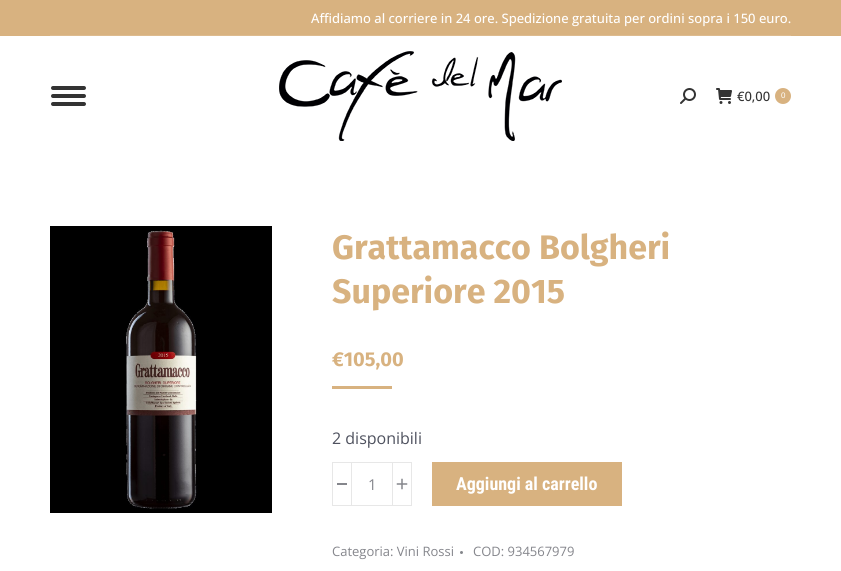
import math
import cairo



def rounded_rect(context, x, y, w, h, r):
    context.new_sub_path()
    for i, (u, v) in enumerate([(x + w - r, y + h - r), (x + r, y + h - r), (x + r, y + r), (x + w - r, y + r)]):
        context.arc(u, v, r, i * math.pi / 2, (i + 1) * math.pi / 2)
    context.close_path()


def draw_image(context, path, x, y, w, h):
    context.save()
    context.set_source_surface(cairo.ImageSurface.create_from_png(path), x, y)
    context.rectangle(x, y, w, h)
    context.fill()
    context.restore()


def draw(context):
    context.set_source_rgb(1, 1, 1)
    context.paint()
    context.set_source_rgb(216 / 255, 178 / 255, 128 / 255)
    context.rectangle(0, 0, 841, 36)
    context.fill()
    context.set_source_rgb(221 / 255, 187 / 255, 143 / 255)
    context.rectangle(50, 35, 741, 1)
    context.fill()
    context.set_source_rgb(51 / 255, 51 / 255, 51 / 255)
    rounded_rect(context, 51, 86, 35, 4, 2)
    context.fill()
    rounded_rect(context, 51, 94, 35, 4, 2)
    context.fill()
    rounded_rect(context, 51, 102, 35, 4, 2)
    context.fill()
    draw_image(context, "images/1.png", 279, 51, 283, 90)
    draw_image(context, "images/2.png", 680, 88, 16, 16)
    draw_image(context, "images/3.png", 716, 88, 16, 16)
    context.set_source_rgb(216 / 255, 178 / 255, 128 / 255)
    context.arc(783, 96, 8, 0, 2 * math.pi)
    context.fill()
    draw_image(context, "images/4.png", 50, 226, 222, 287)
    context.rectangle(332, 386, 60, 3)
    context.fill()
    context.rectangle(332.5, 462.5, 19, 43)
    context.set_source_rgb(231 / 255, 231 / 255, 231 / 255)
    context.set_line_width(1)
    context.stroke()
    context.set_source_rgb(133 / 255, 134 / 255, 140 / 255)
    context.rectangle(337, 483, 10, 2)
    context.fill()
    context.set_source_rgb(231 / 255, 231 / 255, 231 / 255)
    context.rectangle(352, 462, 40, 1)
    context.fill()
    context.rectangle(352, 505, 40, 1)
    context.fill()
    context.rectangle(392.5, 462.5, 19, 43)
    context.stroke()
    draw_image(context, "images/5.png", 396, 478, 12, 12)
    context.set_source_rgb(216 / 255, 178 / 255, 128 / 255)
    context.rectangle(432, 462, 190, 44)
    context.fill()
    context.set_source_rgb(133 / 255, 135 / 255, 140 / 255)
    context.arc(461.5, 552.5, 1.5, 0, 2 * math.pi)
    context.fill()
    context.select_font_face("Open Sans Medium")
    context.set_font_size(13)
    context.set_source_rgb(1, 1, 1)
    context.move_to(311, 23)
    context.show_text("Affidiamo al corriere in 24 ore. Spedizione gratuita per ordini sopra i 150 euro.")
    context.set_source_rgb(51 / 255, 51 / 255, 51 / 255)
    context.move_to(737, 101)
    context.show_text("€0,00")
    context.select_font_face("Liberation Sans")
    context.set_font_size(8)
    context.set_source_rgb(1, 1, 1)
    context.move_to(781, 98)
    context.show_text("0")
    context.select_font_face("Fira Sans", cairo.FontSlant.NORMAL, cairo.FontWeight.BOLD)
    context.set_font_size(34)
    context.set_source_rgb(216 / 255, 178 / 255, 128 / 255)
    context.move_to(332, 259)
    context.show_text("Grattamacco Bolgheri")
    context.move_to(332, 303)
    context.show_text("Superiore 2015")
    context.set_font_size(20)
    context.move_to(332, 366)
    context.show_text("€105,00")
    context.select_font_face("Open Sans")
    context.set_font_size(16)
    context.set_source_rgb(78 / 255, 81 / 255, 94 / 255)
    context.move_to(332, 444)
    context.show_text("2 disponibili")
    context.set_font_size(15)
    context.set_source_rgb(133 / 255, 134 / 255, 140 / 255)
    context.move_to(368, 490)
    context.show_text("1")
    context.select_font_face("Roboto Condensed", cairo.FontSlant.NORMAL, cairo.FontWeight.BOLD)
    context.set_font_size(18)
    context.set_source_rgb(1, 1, 1)
    context.move_to(456, 490)
    context.show_text("Aggiungi al carrello")
    context.select_font_face("Open Sans")
    context.set_font_size(13)
    context.set_source_rgb(133 / 255, 134 / 255, 140 / 255)
    context.move_to(332, 556)
    context.show_text("Categoria: Vini Rossi")
    context.move_to(473, 556)
    context.show_text("COD: 934567979")


surface = cairo.ImageSurface(cairo.Format.RGB24, 841, 571)
context = cairo.Context(surface)
options = cairo.FontOptions()
options.set_hint_metrics(cairo.HintMetrics.OFF)
options.set_hint_style(cairo.HintStyle.NONE)
context.set_font_options(options)
context.set_miter_limit(4)
draw(context)
surface.write_to_png("out.png")
